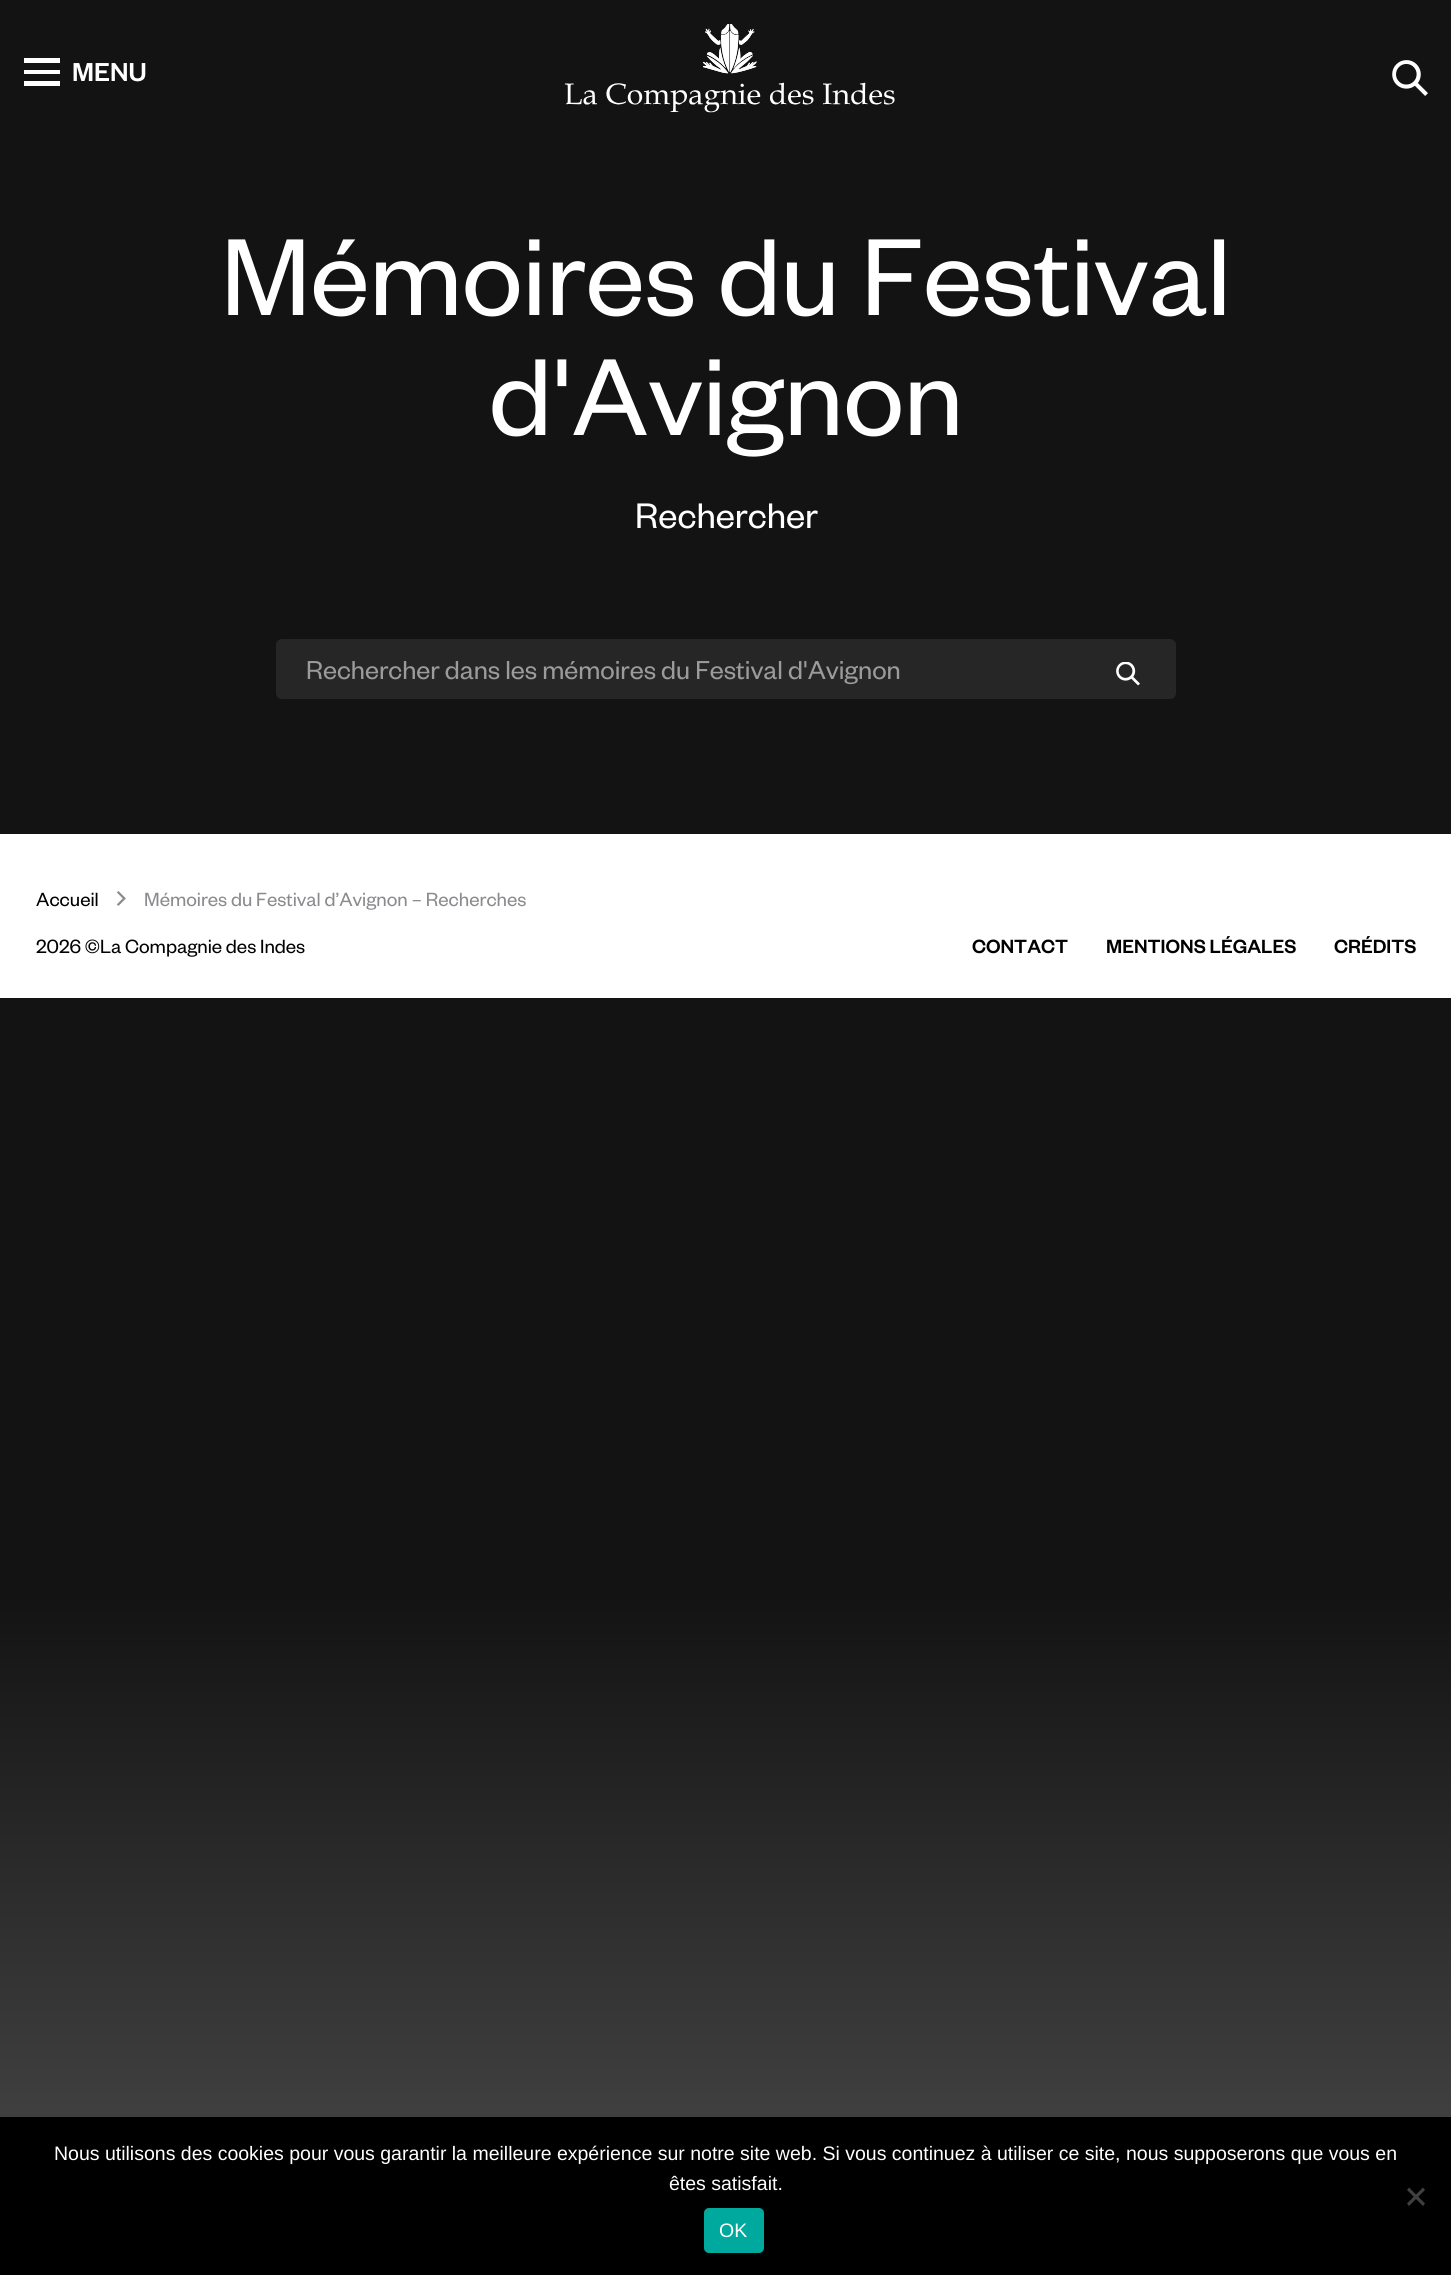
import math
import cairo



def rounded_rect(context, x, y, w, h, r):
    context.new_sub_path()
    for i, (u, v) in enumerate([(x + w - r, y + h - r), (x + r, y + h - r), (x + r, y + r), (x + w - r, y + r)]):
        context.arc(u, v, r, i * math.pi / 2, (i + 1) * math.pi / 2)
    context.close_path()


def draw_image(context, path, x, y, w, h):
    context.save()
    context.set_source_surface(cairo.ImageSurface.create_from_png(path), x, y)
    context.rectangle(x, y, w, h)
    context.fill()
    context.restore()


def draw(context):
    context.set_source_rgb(1, 1, 1)
    context.paint()
    gradient = cairo.LinearGradient(726, 0, 726, 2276)
    gradient.add_color_stop_rgba(0.7, 19 / 255, 19 / 255, 19 / 255, 1)
    gradient.add_color_stop_rgba(1, 77 / 255, 77 / 255, 77 / 255, 1)
    context.set_source(gradient)
    context.rectangle(0, 0, 1451, 2117)
    context.fill()
    context.set_source_rgb(1, 1, 1)
    context.set_fill_rule(cairo.FillRule.EVEN_ODD)
    context.new_path()
    context.move_to(24, 63)
    context.line_to(24, 58)
    context.line_to(60, 58)
    context.line_to(60, 63)
    context.close_path()
    context.move_to(24, 74)
    context.line_to(24, 70)
    context.line_to(60, 70)
    context.line_to(60, 74)
    context.close_path()
    context.move_to(24, 86)
    context.line_to(24, 81)
    context.line_to(60, 81)
    context.line_to(60, 86)
    context.close_path()
    context.fill()
    draw_image(context, "images/1.png", 564, 24, 331, 89)
    draw_image(context, "images/2.png", 1392, 60, 36, 36)
    context.set_source_rgb(38 / 255, 38 / 255, 38 / 255)
    rounded_rect(context, 276, 639, 900, 60, 6)
    context.fill()
    draw_image(context, "images/3.png", 1116, 662, 24, 24)
    context.set_source_rgb(1, 1, 1)
    context.rectangle(0, 834, 1451, 164)
    context.fill()
    draw_image(context, "images/4.png", 116, 891, 10, 15)
    context.set_source_rgb(0, 0, 0)
    context.rectangle(0, 2117, 1451, 158)
    context.fill()
    context.set_source_rgb(64 / 255, 64 / 255, 64 / 255)
    context.set_fill_rule(cairo.FillRule.WINDING)
    context.new_path()
    context.move_to(1423, 2187.5)
    context.line_to(1425, 2190)
    context.line_to(1409, 2206)
    context.line_to(1407, 2203.5)
    context.close_path()
    context.fill()
    context.new_path()
    context.move_to(1407, 2190)
    context.line_to(1409, 2187.5)
    context.line_to(1425, 2203.5)
    context.line_to(1423, 2206)
    context.close_path()
    context.fill()
    context.set_source_rgb(0, 169 / 255, 157 / 255)
    rounded_rect(context, 704, 2208, 60, 45, 5)
    context.fill()
    context.select_font_face("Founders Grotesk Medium")
    context.set_font_size(28.5)
    context.set_source_rgb(1, 1, 1)
    context.move_to(72, 81)
    context.show_text("MENU")
    context.select_font_face("Founders Grotesk")
    context.set_font_size(120)
    context.move_to(221, 315)
    context.show_text("Mémoires du Festival")
    context.move_to(489, 435)
    context.show_text("d'Avignon")
    context.set_font_size(39)
    context.move_to(635, 528)
    context.show_text("Rechercher")
    context.set_font_size(28.5)
    context.set_source_rgb(155 / 255, 155 / 255, 155 / 255)
    context.move_to(306, 679)
    context.show_text("Rechercher dans les mémoires du Festival d'Avignon")
    context.set_font_size(21)
    context.set_source_rgb(0, 0, 0)
    context.move_to(36, 906)
    context.show_text("Accueil")
    context.set_source_rgb(138 / 255, 139 / 255, 142 / 255)
    context.move_to(144, 906)
    context.show_text("Mémoires du Festival d’Avignon – Recherches")
    context.set_source_rgb(0, 0, 0)
    context.move_to(36, 953)
    context.show_text("2026 ©La Compagnie des Indes")
    context.select_font_face("Founders Grotesk Medium")
    context.move_to(972, 953)
    context.show_text("CONTACT")
    context.move_to(1106, 953)
    context.show_text("MENTIONS LÉGALES")
    context.move_to(1334, 953)
    context.show_text("CRÉDITS")
    context.select_font_face("Liberation Sans")
    context.set_font_size(19.5)
    context.set_source_rgb(1, 1, 1)
    context.move_to(54, 2160)
    context.show_text("Nous utilisons des cookies pour vous garantir la meilleure expérience sur notre site web. Si vous continuez à utiliser ce site, nous supposerons que vous en")
    context.move_to(669, 2190)
    context.show_text("êtes satisfait.")
    context.move_to(719, 2237)
    context.show_text("OK")


surface = cairo.ImageSurface(cairo.Format.RGB24, 1451, 2275)
context = cairo.Context(surface)
options = cairo.FontOptions()
options.set_hint_metrics(cairo.HintMetrics.OFF)
options.set_hint_style(cairo.HintStyle.NONE)
context.set_font_options(options)
context.set_miter_limit(4)
draw(context)
surface.write_to_png("out.png")
